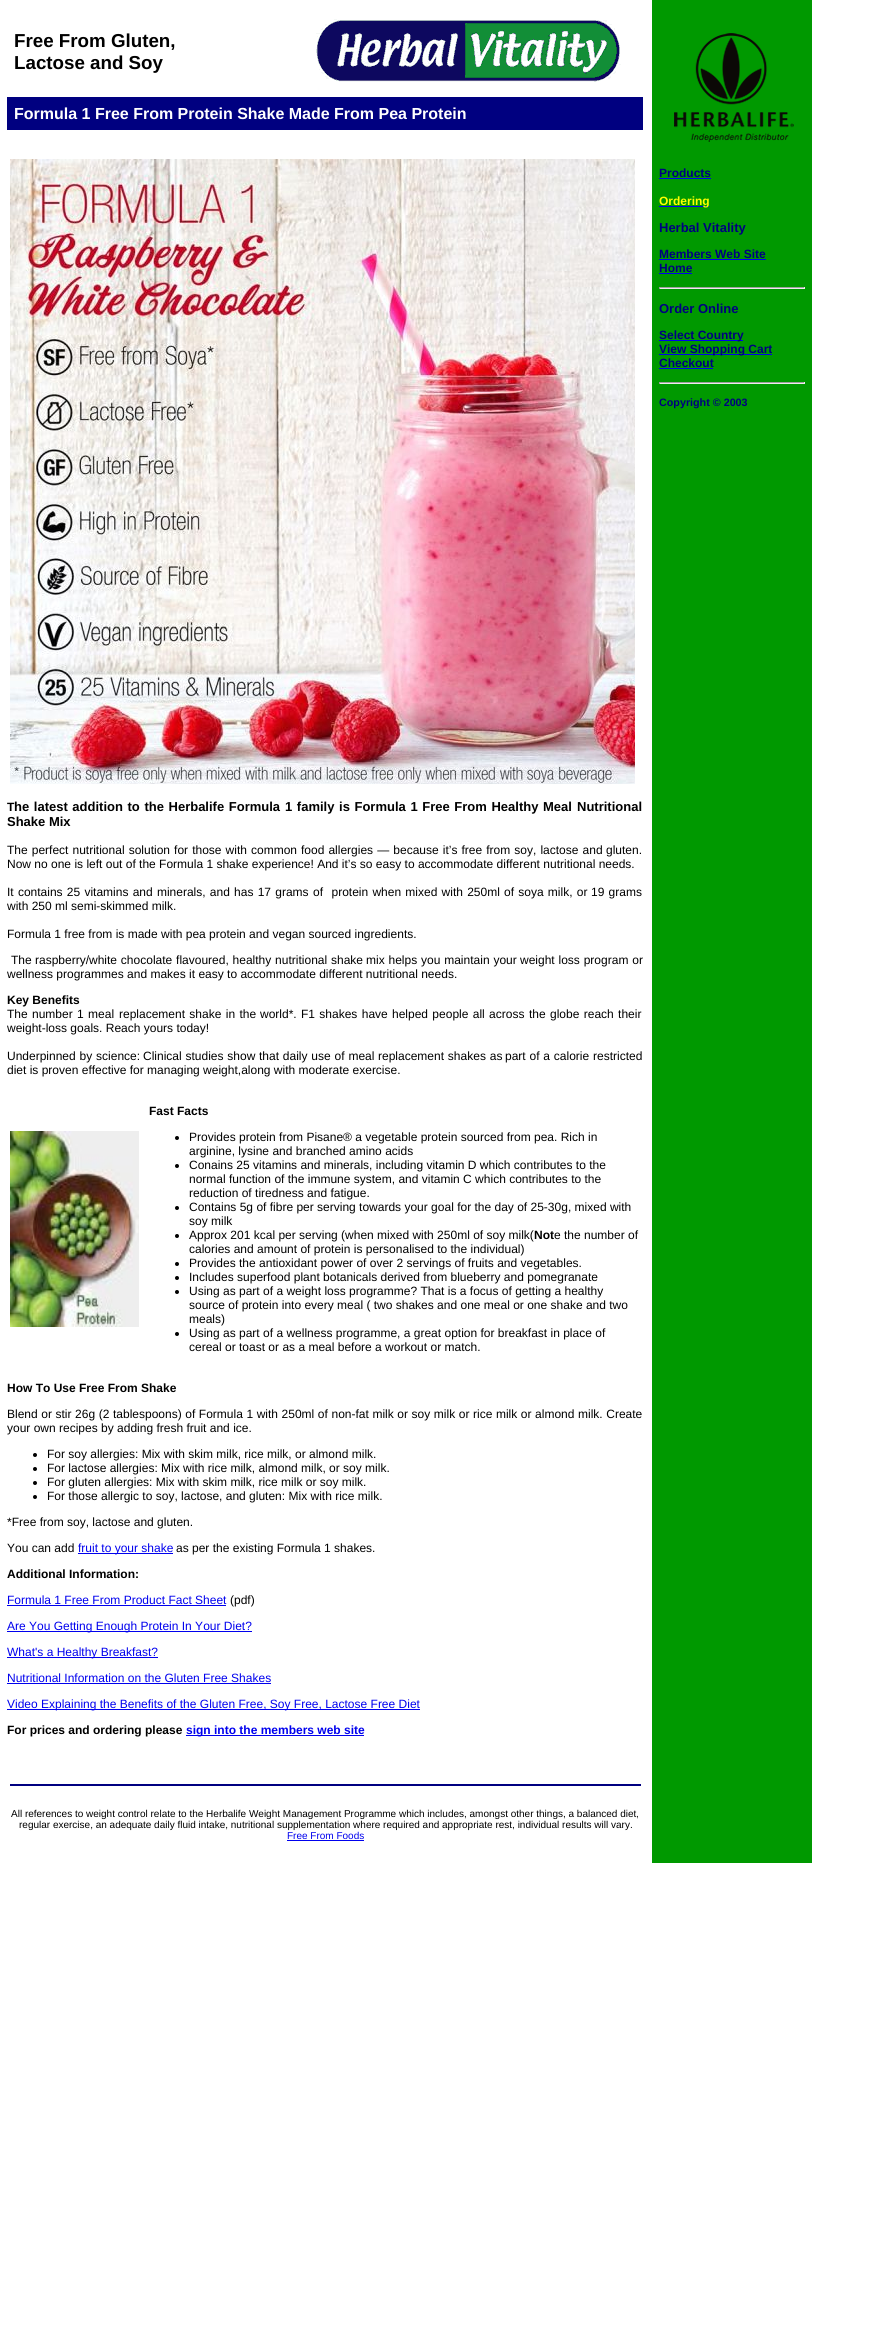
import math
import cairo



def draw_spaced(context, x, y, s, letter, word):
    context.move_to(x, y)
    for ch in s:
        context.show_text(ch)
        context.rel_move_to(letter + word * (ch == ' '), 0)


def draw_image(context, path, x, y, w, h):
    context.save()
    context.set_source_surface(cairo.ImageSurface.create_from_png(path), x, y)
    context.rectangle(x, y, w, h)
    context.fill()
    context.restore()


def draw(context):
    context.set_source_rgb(1, 1, 1)
    context.paint()
    draw_image(context, "images/1.png", 316, 19, 305, 63)
    context.set_source_rgb(0, 0, 128 / 255)
    context.rectangle(7, 97, 636, 33)
    context.fill()
    draw_image(context, "images/2.png", 10, 159, 625, 625)
    draw_image(context, "images/3.png", 10, 1131, 129, 196)
    context.set_source_rgb(0, 0, 0)
    context.arc(177, 1138, 2, 0, 2 * math.pi)
    context.fill()
    context.arc(177, 1166, 2, 0, 2 * math.pi)
    context.fill()
    context.arc(177, 1208, 2, 0, 2 * math.pi)
    context.fill()
    context.arc(177, 1236, 2, 0, 2 * math.pi)
    context.fill()
    context.arc(177, 1264, 2, 0, 2 * math.pi)
    context.fill()
    context.arc(177, 1278, 2, 0, 2 * math.pi)
    context.fill()
    context.arc(177, 1292, 2, 0, 2 * math.pi)
    context.fill()
    context.arc(177, 1334, 2, 0, 2 * math.pi)
    context.fill()
    context.arc(35, 1455, 2, 0, 2 * math.pi)
    context.fill()
    context.arc(35, 1469, 2, 0, 2 * math.pi)
    context.fill()
    context.arc(35, 1483, 2, 0, 2 * math.pi)
    context.fill()
    context.arc(35, 1497, 2, 0, 2 * math.pi)
    context.fill()
    context.set_source_rgb(0, 0, 238 / 255)
    context.rectangle(78, 1553, 95, 1)
    context.fill()
    context.rectangle(7, 1605, 219, 1)
    context.fill()
    context.rectangle(7, 1631, 245, 1)
    context.fill()
    context.rectangle(7, 1657, 151, 1)
    context.fill()
    context.rectangle(7, 1683, 264, 1)
    context.fill()
    context.rectangle(7, 1709, 413, 1)
    context.fill()
    context.rectangle(186, 1735, 178, 1)
    context.fill()
    context.set_source_rgb(0, 0, 128 / 255)
    context.rectangle(10, 1784, 631, 2)
    context.fill()
    context.set_source_rgb(0, 0, 238 / 255)
    context.rectangle(287, 1840, 77, 1)
    context.fill()
    context.set_source_rgb(0, 153 / 255, 0)
    context.rectangle(652, 0, 160, 1863)
    context.fill()
    draw_image(context, "images/4.png", 674, 33, 120, 109)
    context.set_source_rgb(0, 0, 238 / 255)
    context.rectangle(659, 178, 52, 1)
    context.fill()
    context.rectangle(659, 206, 50, 1)
    context.fill()
    context.rectangle(659, 259, 107, 1)
    context.fill()
    context.rectangle(659, 273, 33, 1)
    context.fill()
    context.set_source_rgb(159 / 255, 159 / 255, 159 / 255)
    context.rectangle(659, 287, 146, 1)
    context.fill()
    context.set_source_rgb(238 / 255, 238 / 255, 238 / 255)
    context.rectangle(804, 287, 1, 2)
    context.fill()
    context.rectangle(659, 288, 146, 1)
    context.fill()
    context.set_source_rgb(159 / 255, 159 / 255, 159 / 255)
    context.rectangle(659, 287, 1, 2)
    context.fill()
    context.set_source_rgb(0, 0, 238 / 255)
    context.rectangle(659, 340, 84, 1)
    context.fill()
    context.rectangle(659, 354, 113, 1)
    context.fill()
    context.rectangle(659, 368, 54, 1)
    context.fill()
    context.set_source_rgb(159 / 255, 159 / 255, 159 / 255)
    context.rectangle(659, 382, 146, 1)
    context.fill()
    context.set_source_rgb(238 / 255, 238 / 255, 238 / 255)
    context.rectangle(804, 382, 1, 2)
    context.fill()
    context.rectangle(659, 383, 146, 1)
    context.fill()
    context.set_source_rgb(159 / 255, 159 / 255, 159 / 255)
    context.rectangle(659, 382, 1, 2)
    context.fill()
    context.select_font_face("Liberation Sans", cairo.FontSlant.NORMAL, cairo.FontWeight.BOLD)
    context.set_font_size(18.75)
    context.set_source_rgb(0, 0, 0)
    context.move_to(14, 47)
    context.show_text("Free From Gluten,")
    context.move_to(14, 69)
    context.show_text("Lactose and Soy")
    context.set_font_size(16)
    context.set_source_rgb(1, 1, 1)
    context.move_to(14, 119)
    context.show_text("Formula 1 Free From Protein Shake Made From Pea Protein")
    context.set_font_size(12)
    context.set_source_rgb(0, 0, 0)
    context.move_to(7, 811)
    context.show_text("T")
    context.set_font_size(13)
    draw_spaced(context, 14, 811, "he latest addition to the Herbalife Formula", 0, 1)
    draw_spaced(context, 285, 811, "1 family is Formula 1 Free From Healthy Meal", 0, 1)
    context.move_to(577, 811)
    context.show_text("Nutritional")
    context.move_to(7, 826)
    context.show_text("Shake Mix")
    context.select_font_face("Liberation Sans")
    context.set_font_size(12)
    draw_spaced(context, 7, 854, "The perfect nutritional solution for those with common", 0, 0.75)
    draw_spaced(context, 301, 854, "food allergies — because it’s free from soy, lactose and", 0, 0.75)
    context.move_to(606, 854)
    context.show_text("gluten.")
    context.move_to(7, 868)
    context.show_text("Now no one is left out of the Formula 1 shake experience! And it’s so easy to accommodate different nutritional needs.")
    draw_spaced(context, 7, 896, "It contains 25 vitamins and minerals, and has 17 grams", 0, 0.9)
    draw_spaced(context, 313, 896, "of  protein when mixed with 250ml of soya milk, or", 0, 0.9)
    draw_spaced(context, 591, 896, "19 grams", 0, 0.9)
    context.move_to(7, 910)
    context.show_text("with 250 ml semi-skimmed milk.")
    context.move_to(7, 938)
    context.show_text("Formula 1 free from is made with pea protein and vegan sourced ingredients.")
    context.move_to(11, 964)
    context.show_text("The")
    draw_spaced(context, 35, 964, "raspberry/white chocolate flavoured, healthy nutritional shake", 0, 0.5)
    draw_spaced(context, 366, 964, "mix helps you maintain your", 0, 0.5)
    draw_spaced(context, 520, 964, "weight loss program or", 0, 0.5)
    context.move_to(7, 978)
    context.show_text("wellness programmes and makes it easy to accommodate different nutritional needs.")
    context.select_font_face("Liberation Sans", cairo.FontSlant.NORMAL, cairo.FontWeight.BOLD)
    context.move_to(7, 1004)
    context.show_text("Key Benefits")
    context.select_font_face("Liberation Sans")
    draw_spaced(context, 7, 1018, "The number 1 meal", 0, 1)
    draw_spaced(context, 119, 1018, "replacement shake in the", 0, 1)
    draw_spaced(context, 260, 1018, "world*. F1 shakes have", 0, 1)
    draw_spaced(context, 392, 1018, "helped people all across", 0, 1)
    draw_spaced(context, 529, 1018, "the globe reach their", 0, 1)
    context.move_to(7, 1032)
    context.show_text("weight-loss goals. Reach yours today!")
    draw_spaced(context, 7, 1060, "Underpinned by science:", 0, 0.5)
    draw_spaced(context, 143, 1060, "Clinical studies show", 0, 0.5)
    draw_spaced(context, 259, 1060, "that daily use of meal", 0, 0.5)
    draw_spaced(context, 378, 1060, "replacement shakes as", 0, 0.5)
    draw_spaced(context, 505, 1060, "part of a calorie", 0, 0.5)
    context.move_to(593, 1060)
    context.show_text("restricted")
    context.move_to(7, 1074)
    context.show_text("diet is proven effective for managing weight,along with moderate exercise.")
    context.select_font_face("Liberation Sans", cairo.FontSlant.NORMAL, cairo.FontWeight.BOLD)
    context.move_to(149, 1115)
    context.show_text("Fast Facts")
    context.select_font_face("Liberation Sans")
    context.move_to(189, 1141)
    context.show_text("Provides protein from Pisane® a vegetable protein sourced from pea. Rich in")
    context.move_to(189, 1155)
    context.show_text("arginine, lysine and branched amino acids")
    context.move_to(189, 1169)
    context.show_text("Conains 25 vitamins and minerals, including vitamin D which contributes to the")
    context.move_to(189, 1183)
    context.show_text("normal function of the immune system, and vitamin C which contributes to the")
    context.move_to(189, 1197)
    context.show_text("reduction of tiredness and fatigue.")
    context.move_to(189, 1211)
    context.show_text("Contains 5g of fibre per serving towards your goal for the day of 25-30g, mixed with")
    context.move_to(189, 1225)
    context.show_text("soy milk")
    context.move_to(189, 1239)
    context.show_text("Approx 201 kcal per serving (when mixed with 250ml of soy milk(")
    context.select_font_face("Liberation Sans", cairo.FontSlant.NORMAL, cairo.FontWeight.BOLD)
    context.move_to(534, 1239)
    context.show_text("Not")
    context.select_font_face("Liberation Sans")
    context.move_to(554, 1239)
    context.show_text("e the number of")
    context.move_to(189, 1253)
    context.show_text("calories and amount of protein is personalised to the individual)")
    context.move_to(189, 1267)
    context.show_text("Provides the antioxidant power of over 2 servings of fruits and vegetables.")
    context.move_to(189, 1281)
    context.show_text("Includes superfood plant botanicals derived from blueberry and pomegranate")
    context.move_to(189, 1295)
    context.show_text("Using as part of a weight loss programme? That is a focus of getting a healthy")
    context.move_to(189, 1309)
    context.show_text("source of protein into every meal ( two shakes and one meal or one shake and two")
    context.move_to(189, 1323)
    context.show_text("meals)")
    context.move_to(189, 1337)
    context.show_text("Using as part of a wellness programme, a great option for breakfast in place of")
    context.move_to(189, 1351)
    context.show_text("cereal or toast or as a meal before a workout or match.")
    context.select_font_face("Liberation Sans", cairo.FontSlant.NORMAL, cairo.FontWeight.BOLD)
    context.move_to(7, 1392)
    context.show_text("How To Use Free From Shake")
    context.select_font_face("Liberation Sans")
    draw_spaced(context, 7, 1418, "Blend or stir 26g (2 tablespoons) of Formula 1 with 250ml of non-fat milk or soy milk or rice milk or almond milk. Create", 0, 0.25)
    context.move_to(7, 1432)
    context.show_text("your own recipes by adding fresh fruit and ice.")
    context.move_to(47, 1458)
    context.show_text("For soy allergies: Mix with skim milk, rice milk, or almond milk.")
    context.move_to(47, 1472)
    context.show_text("For lactose allergies: Mix with rice milk, almond milk, or soy milk.")
    context.move_to(47, 1486)
    context.show_text("For gluten allergies: Mix with skim milk, rice milk or soy milk.")
    context.move_to(47, 1500)
    context.show_text("For those allergic to soy, lactose, and gluten: Mix with rice milk.")
    context.move_to(7, 1526)
    context.show_text("*Free from soy, lactose and gluten.")
    context.move_to(7, 1552)
    context.show_text("You can add")
    context.set_source_rgb(0, 0, 238 / 255)
    context.move_to(78, 1552)
    context.show_text("fruit to your shake")
    context.set_source_rgb(0, 0, 0)
    context.move_to(176, 1552)
    context.show_text("as per the existing Formula 1 shakes.")
    context.select_font_face("Liberation Sans", cairo.FontSlant.NORMAL, cairo.FontWeight.BOLD)
    context.move_to(7, 1578)
    context.show_text("Additional Information:")
    context.select_font_face("Liberation Sans")
    context.set_source_rgb(0, 0, 238 / 255)
    context.move_to(7, 1604)
    context.show_text("Formula 1 Free From Product Fact Sheet")
    context.set_source_rgb(0, 0, 0)
    context.move_to(230, 1604)
    context.show_text("(pdf)")
    context.set_source_rgb(0, 0, 238 / 255)
    context.move_to(7, 1630)
    context.show_text("Are You Getting Enough Protein In Your Diet?")
    context.move_to(7, 1656)
    context.show_text("What's a Healthy Breakfast?")
    context.move_to(7, 1682)
    context.show_text("Nutritional Information on the Gluten Free Shakes")
    context.move_to(7, 1708)
    context.show_text("Video Explaining the Benefits of the Gluten Free, Soy Free, Lactose Free Diet")
    context.select_font_face("Liberation Sans", cairo.FontSlant.NORMAL, cairo.FontWeight.BOLD)
    context.set_source_rgb(0, 0, 0)
    context.move_to(7, 1734)
    context.show_text("For prices and ordering please")
    context.set_source_rgb(0, 0, 238 / 255)
    context.move_to(186, 1734)
    context.show_text("sign into the members web site")
    context.select_font_face("Liberation Sans")
    context.set_font_size(10)
    context.set_source_rgb(0, 0, 0)
    context.move_to(11, 1817)
    context.show_text("All references to weight control relate to the Herbalife Weight Management Programme which includes, amongst other things, a balanced diet,")
    context.move_to(19, 1828)
    context.show_text("regular exercise, an adequate daily fluid intake, nutritional supplementation where required and appropriate rest, individual results will vary.")
    context.set_source_rgb(0, 0, 238 / 255)
    context.move_to(287, 1839)
    context.show_text("Free From Foods")
    context.select_font_face("Liberation Sans", cairo.FontSlant.NORMAL, cairo.FontWeight.BOLD)
    context.set_font_size(12)
    context.set_source_rgb(0, 0, 128 / 255)
    context.move_to(659, 177)
    context.show_text("Products")
    context.set_source_rgb(1, 1, 0)
    context.move_to(659, 205)
    context.show_text("Ordering")
    context.set_font_size(13)
    context.set_source_rgb(0, 0, 128 / 255)
    context.move_to(659, 232)
    context.show_text("Herbal Vitality")
    context.set_font_size(12)
    context.move_to(659, 258)
    context.show_text("Members Web Site")
    context.move_to(659, 272)
    context.show_text("Home")
    context.set_font_size(13)
    context.move_to(659, 313)
    context.show_text("Order Online")
    context.set_font_size(12)
    context.move_to(659, 339)
    context.show_text("Select Country")
    context.move_to(659, 353)
    context.show_text("View Shopping Cart")
    context.move_to(659, 367)
    context.show_text("Checkout")
    context.set_font_size(10.75)
    context.move_to(659, 406)
    context.show_text("Copyright © 2003")


surface = cairo.ImageSurface(cairo.Format.RGB24, 876, 2326)
context = cairo.Context(surface)
options = cairo.FontOptions()
options.set_hint_metrics(cairo.HintMetrics.OFF)
options.set_hint_style(cairo.HintStyle.NONE)
context.set_font_options(options)
context.set_miter_limit(4)
draw(context)
surface.write_to_png("out.png")
